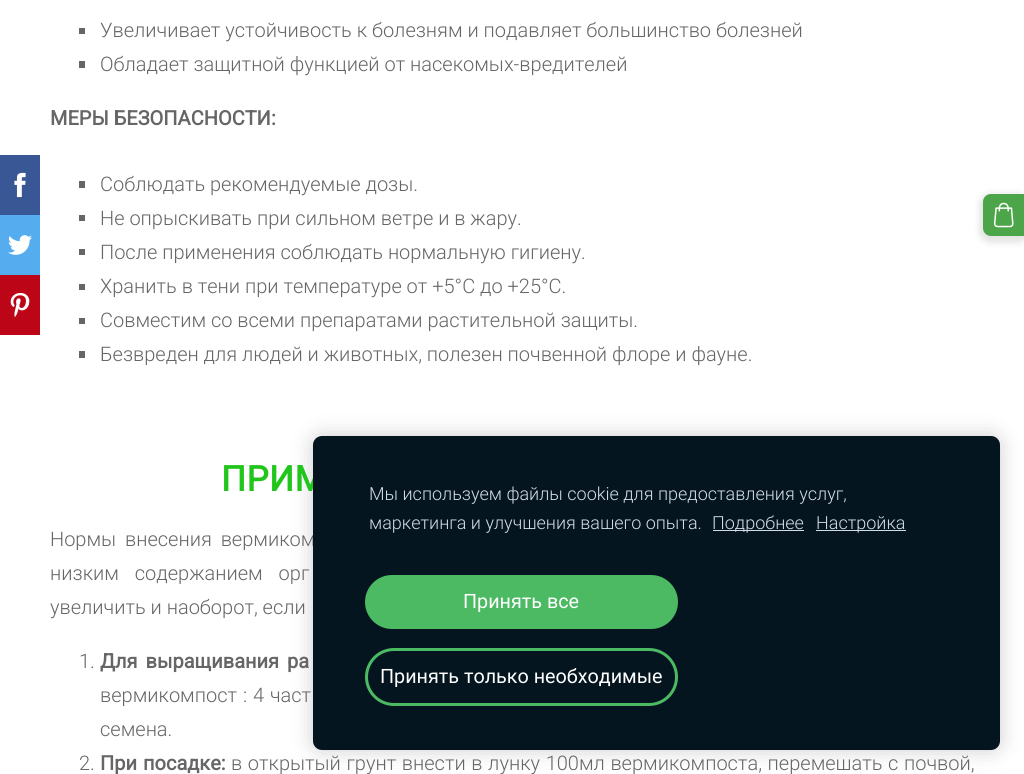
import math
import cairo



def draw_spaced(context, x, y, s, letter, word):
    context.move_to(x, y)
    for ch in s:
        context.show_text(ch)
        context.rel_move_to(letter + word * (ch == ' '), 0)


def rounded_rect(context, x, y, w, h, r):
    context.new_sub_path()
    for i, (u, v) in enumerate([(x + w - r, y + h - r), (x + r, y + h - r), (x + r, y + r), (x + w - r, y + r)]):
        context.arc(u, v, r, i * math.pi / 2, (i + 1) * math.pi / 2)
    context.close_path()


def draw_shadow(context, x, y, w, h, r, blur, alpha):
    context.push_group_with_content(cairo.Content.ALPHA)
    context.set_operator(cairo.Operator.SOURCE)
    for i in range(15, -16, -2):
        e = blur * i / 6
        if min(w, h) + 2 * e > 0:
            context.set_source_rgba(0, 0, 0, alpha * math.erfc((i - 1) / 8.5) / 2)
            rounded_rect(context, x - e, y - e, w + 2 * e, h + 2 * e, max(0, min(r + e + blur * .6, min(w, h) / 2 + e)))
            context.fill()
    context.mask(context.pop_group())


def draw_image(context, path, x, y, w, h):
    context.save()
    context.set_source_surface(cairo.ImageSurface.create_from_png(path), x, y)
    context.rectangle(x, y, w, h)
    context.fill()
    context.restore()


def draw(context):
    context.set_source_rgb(1, 1, 1)
    context.paint()
    context.set_source_rgb(58 / 255, 87 / 255, 149 / 255)
    context.rectangle(0, 155, 40, 60)
    context.fill()
    draw_image(context, "images/1.png", 14, 172, 12, 26)
    context.set_source_rgb(85 / 255, 172 / 255, 238 / 255)
    context.rectangle(0, 215, 40, 60)
    context.fill()
    draw_image(context, "images/2.png", 8, 235, 24, 20)
    context.set_source_rgb(188 / 255, 6 / 255, 24 / 255)
    context.rectangle(0, 275, 40, 60)
    context.fill()
    draw_image(context, "images/3.png", 10, 292, 20, 25)
    context.set_source_rgb(102 / 255, 102 / 255, 102 / 255)
    context.rectangle(79, 28, 6, 6)
    context.fill()
    context.rectangle(79, 61, 6, 7)
    context.fill()
    context.rectangle(79, 181, 6, 7)
    context.fill()
    context.rectangle(79, 215, 6, 6)
    context.fill()
    context.rectangle(79, 249, 6, 6)
    context.fill()
    context.rectangle(79, 284, 6, 6)
    context.fill()
    context.rectangle(79, 318, 6, 6)
    context.fill()
    context.rectangle(79, 351, 6, 7)
    context.fill()
    context.set_source_rgb(0, 0, 0)
    draw_shadow(context, 979, 193, 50, 50, 11, 3, 0.1)
    context.set_source_rgb(76 / 255, 166 / 255, 73 / 255)
    context.new_path()
    context.move_to(991, 194)
    context.line_to(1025, 194)
    context.line_to(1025, 236)
    context.line_to(991, 236)
    context.curve_to(986.5, 236, 983, 232.5, 983, 228)
    context.line_to(983, 202)
    context.curve_to(983, 197.5, 986.5, 194, 991, 194)
    context.close_path()
    context.fill()
    draw_image(context, "images/4.png", 993, 202, 21, 26)
    context.set_source_rgb(0, 0, 0)
    draw_shadow(context, 313, 436, 687, 314, 9, 10.5, 0.2)
    context.select_font_face("Roboto Light")
    context.set_font_size(20)
    context.set_source_rgb(102 / 255, 102 / 255, 102 / 255)
    context.move_to(100, 37)
    context.show_text("Увеличивает устойчивость к болезням и подавляет большинство болезней")
    context.move_to(100, 71)
    context.show_text("Обладает защитной функцией от насекомых-вредителей")
    context.select_font_face("Roboto", cairo.FontSlant.NORMAL, cairo.FontWeight.BOLD)
    context.move_to(50, 125)
    context.show_text("МЕРЫ БЕЗОПАСНОСТИ:")
    context.select_font_face("Roboto Light")
    context.move_to(100, 191)
    context.show_text("Соблюдать рекомендуемые дозы.")
    context.move_to(100, 225)
    context.show_text("Не опрыскивать при сильном ветре и в жару.")
    context.move_to(100, 259)
    context.show_text("После применения соблюдать нормальную гигиену.")
    context.move_to(100, 293)
    context.show_text("Хранить в тени при температуре от +5°С до +25°С.")
    context.move_to(100, 327)
    context.show_text("Совместим со всеми препаратами растительной защиты.")
    context.move_to(100, 361)
    context.show_text("Безвреден для людей и животных, полезен почвенной флоре и фауне.")
    context.select_font_face("Roboto", cairo.FontSlant.NORMAL, cairo.FontWeight.BOLD)
    context.set_font_size(35)
    context.set_source_rgb(34 / 255, 197 / 255, 27 / 255)
    draw_spaced(context, 221, 491, "ПРИМ", 0.5, 0)
    context.select_font_face("Roboto Light")
    context.set_font_size(20)
    context.set_source_rgb(102 / 255, 102 / 255, 102 / 255)
    draw_spaced(context, 50, 546, "Нормы внесения вермиком", 0, 4)
    draw_spaced(context, 50, 580, "низким содержанием орг", 0, 11)
    context.move_to(50, 614)
    context.show_text("увеличить и наоборот, если")
    context.move_to(79, 668)
    context.show_text("1.")
    context.select_font_face("Roboto", cairo.FontSlant.NORMAL, cairo.FontWeight.BOLD)
    draw_spaced(context, 100, 668, "Для выращивания ра", 0, 3)
    context.select_font_face("Roboto Light")
    draw_spaced(context, 100, 702, "вермикомпост : 4 част", 0, 1)
    context.move_to(100, 736)
    context.show_text("семена.")
    context.move_to(79, 770)
    context.show_text("2.")
    context.select_font_face("Roboto", cairo.FontSlant.NORMAL, cairo.FontWeight.BOLD)
    draw_spaced(context, 100, 770, "При посадке:", 0, 1)
    context.select_font_face("Roboto Light")
    draw_spaced(context, 231, 770, "в открытый грунт внести в лунку 100мл вермикомпоста, перемешать с почвой,", 0, 0.75)
    context.set_source_rgb(4 / 255, 21 / 255, 31 / 255)
    rounded_rect(context, 313, 436, 687, 314, 9)
    context.fill()
    context.set_font_size(18)
    context.set_source_rgb(210 / 255, 220 / 255, 230 / 255)
    context.move_to(369, 500)
    context.show_text("Мы используем файлы cookie для предоставления услуг,")
    context.move_to(369, 529)
    context.show_text("маркетинга и улучшения вашего опыта.")
    context.rectangle(713, 530, 91, 1)
    context.fill()
    context.move_to(712, 529)
    context.show_text("Подробнее")
    context.rectangle(816, 530, 90, 1)
    context.fill()
    context.move_to(816, 529)
    context.show_text("Настройка")
    context.set_source_rgb(76 / 255, 185 / 255, 99 / 255)
    rounded_rect(context, 365, 575, 313, 54, 27)
    context.fill()
    context.select_font_face("Roboto")
    context.set_font_size(19.75)
    context.set_source_rgb(1, 1, 1)
    context.move_to(463, 608)
    context.show_text("Принять все")
    rounded_rect(context, 366.5, 649.5, 310, 55, 27.5)
    context.set_source_rgb(76 / 255, 185 / 255, 99 / 255)
    context.set_line_width(3)
    context.stroke()
    context.set_source_rgb(1, 1, 1)
    context.move_to(380, 683)
    context.show_text("Принять только необходимые")


surface = cairo.ImageSurface(cairo.Format.RGB24, 1024, 774)
context = cairo.Context(surface)
options = cairo.FontOptions()
options.set_hint_metrics(cairo.HintMetrics.OFF)
options.set_hint_style(cairo.HintStyle.NONE)
context.set_font_options(options)
context.set_miter_limit(4)
draw(context)
surface.write_to_png("out.png")
